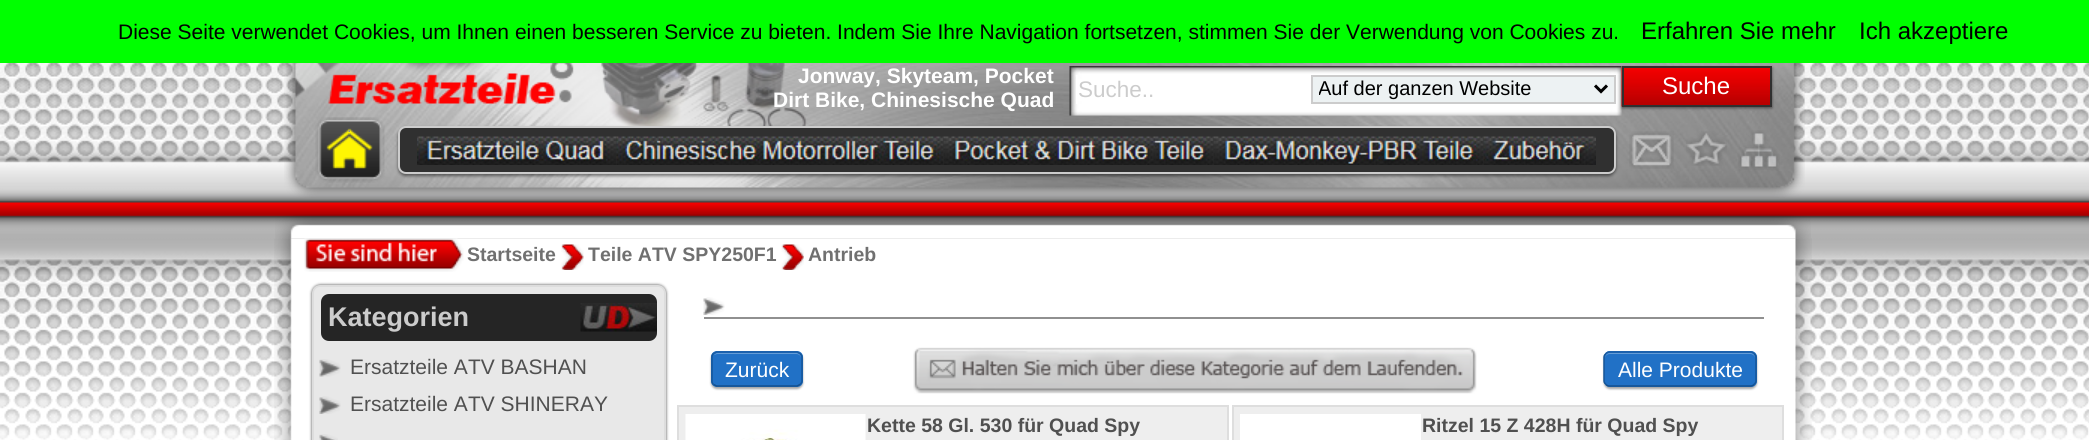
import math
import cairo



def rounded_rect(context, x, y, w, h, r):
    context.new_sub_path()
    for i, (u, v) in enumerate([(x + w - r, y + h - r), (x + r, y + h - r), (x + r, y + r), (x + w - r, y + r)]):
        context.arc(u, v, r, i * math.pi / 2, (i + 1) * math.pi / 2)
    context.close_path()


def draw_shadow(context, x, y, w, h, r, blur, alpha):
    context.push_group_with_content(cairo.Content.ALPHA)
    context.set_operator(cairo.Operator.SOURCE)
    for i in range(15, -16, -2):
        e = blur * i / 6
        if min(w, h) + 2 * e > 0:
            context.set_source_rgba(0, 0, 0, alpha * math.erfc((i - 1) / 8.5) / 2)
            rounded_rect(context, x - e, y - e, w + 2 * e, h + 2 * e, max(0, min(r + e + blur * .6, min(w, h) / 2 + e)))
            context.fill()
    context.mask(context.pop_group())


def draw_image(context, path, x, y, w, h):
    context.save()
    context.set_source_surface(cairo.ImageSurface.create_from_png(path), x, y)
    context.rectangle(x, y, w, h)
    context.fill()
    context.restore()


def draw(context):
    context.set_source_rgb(1, 1, 1)
    context.paint()
    draw_image(context, "images/1.png", 0, 63, 2089, 377)
    draw_image(context, "images/2.png", 284, 63, 1521, 135)
    draw_image(context, "images/4.png", 1069, 66, 553, 50)
    context.set_source_rgb(0, 0, 0)
    draw_shadow(context, 1622, 68, 150, 40, 0, 1.5, 0.5)
    context.set_source_rgb(0, 1, 0)
    context.rectangle(0, 0, 2089, 63)
    context.fill()
    draw_image(context, "images/3.png", 328, 63, 246, 41)
    context.set_source_rgb(1, 1, 1)
    context.rectangle(1076, 75, 2, 29)
    context.fill()
    context.set_source_rgb(237 / 255, 242 / 255, 243 / 255)
    context.rectangle(1312, 76, 303, 27)
    context.fill_preserve()
    context.set_source_rgb(204 / 255, 204 / 255, 204 / 255)
    context.stroke()
    context.new_path()
    context.move_to(1595, 85.5)
    context.line_to(1601, 91.5)
    context.line_to(1607, 85.5)
    context.set_source_rgb(0, 0, 0)
    context.set_line_width(3)
    context.stroke()
    draw_image(context, "images/5.png", 1621, 67, 149, 40)
    context.rectangle(1623, 67, 148, 39)
    context.set_source_rgb(48 / 255, 48 / 255, 48 / 255)
    context.set_line_width(2)
    context.stroke()
    draw_image(context, "images/6.png", 315, 117, 70, 66)
    context.set_source_rgb(0, 0, 0)
    draw_shadow(context, 398, 128, 1218, 48, 8, 1.5, 0.5)
    context.set_source_rgb(48 / 255, 48 / 255, 48 / 255)
    rounded_rect(context, 399, 127, 1216, 46, 7)
    context.fill_preserve()
    context.set_source_rgb(204 / 255, 204 / 255, 204 / 255)
    context.stroke()
    draw_image(context, "images/7.png", 417, 136, 200, 29)
    draw_image(context, "images/8.png", 616, 136, 328, 29)
    draw_image(context, "images/9.png", 943, 136, 271, 29)
    draw_image(context, "images/10.png", 1213, 136, 271, 29)
    draw_image(context, "images/11.png", 1483, 136, 113, 29)
    draw_image(context, "images/12.png", 1629, 131, 45, 38)
    draw_image(context, "images/13.png", 1686, 131, 41, 35)
    draw_image(context, "images/14.png", 1738, 130, 42, 40)
    draw_image(context, "images/15.png", 275, 214, 1536, 25)
    draw_image(context, "images/16.png", 274, 238, 1538, 202)
    draw_image(context, "images/17.png", 304, 238, 160, 34)
    draw_image(context, "images/18.png", 561, 244, 23, 26)
    draw_image(context, "images/19.png", 781, 244, 23, 26)
    context.set_source_rgb(68 / 255, 68 / 255, 68 / 255)
    draw_shadow(context, 312, 285, 354, 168, 8, 1.5, 1)
    context.set_source_rgb(232 / 255, 232 / 255, 232 / 255)
    rounded_rect(context, 313, 286, 352, 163, 7)
    context.fill_preserve()
    context.set_source_rgb(221 / 255, 221 / 255, 221 / 255)
    context.stroke()
    context.set_source_rgb(37 / 255, 37 / 255, 37 / 255)
    rounded_rect(context, 321, 294, 336, 47, 8)
    context.fill()
    draw_image(context, "images/20.png", 580, 303, 77, 29)
    draw_image(context, "images/21.png", 319, 359, 22, 18)
    draw_image(context, "images/22.png", 319, 396, 22, 18)
    draw_image(context, "images/23.png", 319, 434, 19, 6)
    draw_image(context, "images/24.png", 703, 297, 22, 18)
    context.set_source_rgb(144 / 255, 144 / 255, 144 / 255)
    context.rectangle(704, 317, 1060, 2)
    context.fill()
    context.set_source_rgb(0, 0, 0)
    draw_shadow(context, 711, 353, 92, 36, 6, 1, 0.35)
    context.set_source_rgb(33 / 255, 113 / 255, 198 / 255)
    rounded_rect(context, 711, 351, 92, 36, 6)
    context.fill()
    context.set_source_rgb(100 / 255, 156 / 255, 215 / 255)
    context.new_path()
    context.move_to(717, 354)
    context.line_to(796, 354)
    context.curve_to(799, 354, 801, 356, 801, 358)
    context.curve_to(801, 355, 799, 353, 796, 353)
    context.line_to(718, 353)
    context.curve_to(716, 353, 715, 354, 714, 355)
    context.close_path()
    context.fill()
    context.new_path()
    context.move_to(713.5, 353.5)
    context.line_to(716.5, 352)
    context.line_to(797, 352)
    context.line_to(800, 353.5)
    context.set_source_rgb(25 / 255, 92 / 255, 163 / 255)
    context.set_line_width(1.5)
    context.stroke()
    context.new_path()
    context.move_to(800, 353.5)
    context.curve_to(801, 354.5, 802, 355.5, 802, 357)
    context.line_to(802, 381)
    context.curve_to(802, 382.5, 801, 383.5, 800, 384.5)
    context.set_source_rgb(22 / 255, 86 / 255, 152 / 255)
    context.stroke()
    context.new_path()
    context.move_to(800, 384.5)
    context.line_to(797, 386)
    context.line_to(716.5, 386)
    context.line_to(713.5, 384.5)
    context.set_source_rgb(20 / 255, 79 / 255, 139 / 255)
    context.stroke()
    context.new_path()
    context.move_to(713.5, 384.5)
    context.curve_to(712.5, 383.5, 712, 382.5, 712, 381)
    context.line_to(712, 357)
    context.curve_to(712, 355.5, 712.5, 354.5, 713.5, 353.5)
    context.set_source_rgb(22 / 255, 86 / 255, 152 / 255)
    context.stroke()
    draw_image(context, "images/25.png", 913, 347, 564, 47)
    context.set_source_rgb(0, 0, 0)
    draw_shadow(context, 1604, 353, 153, 36, 6, 1, 0.35)
    context.set_source_rgb(33 / 255, 113 / 255, 198 / 255)
    rounded_rect(context, 1604, 351, 153, 36, 6)
    context.fill()
    context.set_source_rgb(100 / 255, 156 / 255, 215 / 255)
    context.new_path()
    context.move_to(1610, 354)
    context.line_to(1750, 354)
    context.curve_to(1753, 354, 1755, 356, 1755, 358)
    context.curve_to(1755, 355, 1753, 353, 1750, 353)
    context.line_to(1610, 353)
    context.curve_to(1607, 353, 1605, 355, 1605, 358)
    context.curve_to(1605, 356, 1607, 354, 1610, 354)
    context.close_path()
    context.fill()
    context.new_path()
    context.move_to(1606, 353.5)
    context.curve_to(1607, 352.5, 1608, 352, 1609.5, 352)
    context.line_to(1750.5, 352)
    context.curve_to(1752, 352, 1753, 352.5, 1754, 353.5)
    context.set_source_rgb(25 / 255, 92 / 255, 163 / 255)
    context.stroke()
    context.new_path()
    context.move_to(1754, 353.5)
    context.curve_to(1755, 354.5, 1756, 355.5, 1756, 357)
    context.line_to(1756, 381)
    context.curve_to(1756, 382.5, 1755, 383.5, 1754, 384.5)
    context.set_source_rgb(22 / 255, 86 / 255, 152 / 255)
    context.stroke()
    context.new_path()
    context.move_to(1754, 384.5)
    context.curve_to(1753, 385.5, 1752, 386, 1750.5, 386)
    context.line_to(1609.5, 386)
    context.curve_to(1608, 386, 1607, 385.5, 1606, 384.5)
    context.set_source_rgb(20 / 255, 79 / 255, 139 / 255)
    context.stroke()
    context.new_path()
    context.move_to(1606, 384.5)
    context.curve_to(1605, 383.5, 1604, 382.5, 1604, 381)
    context.line_to(1604, 357)
    context.curve_to(1604, 355.5, 1605, 354.5, 1606, 353.5)
    context.set_source_rgb(22 / 255, 86 / 255, 152 / 255)
    context.stroke()
    context.set_source_rgb(238 / 255, 238 / 255, 238 / 255)
    context.rectangle(678, 406, 550, 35)
    context.fill_preserve()
    context.set_source_rgb(222 / 255, 222 / 255, 222 / 255)
    context.set_line_width(2)
    context.stroke()
    draw_image(context, "images/26.png", 685, 414, 181, 26)
    context.set_source_rgb(238 / 255, 238 / 255, 238 / 255)
    context.rectangle(1233, 406, 550, 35)
    context.fill_preserve()
    context.set_source_rgb(222 / 255, 222 / 255, 222 / 255)
    context.stroke()
    context.set_source_rgb(1, 1, 1)
    context.rectangle(1240, 414, 181, 26)
    context.fill()
    context.select_font_face("Liberation Sans")
    context.set_font_size(21)
    context.set_source_rgb(0, 0, 0)
    context.move_to(118, 39)
    context.show_text("Diese Seite verwendet Cookies, um Ihnen einen besseren Service zu bieten. Indem Sie Ihre Navigation fortsetzen, stimmen Sie der Verwendung von Cookies zu.")
    context.set_font_size(24)
    context.move_to(1641, 39)
    context.show_text("Erfahren Sie mehr")
    context.move_to(1859, 39)
    context.show_text("Ich akzeptiere")
    context.select_font_face("Liberation Sans", cairo.FontSlant.NORMAL, cairo.FontWeight.BOLD)
    context.set_font_size(21)
    context.set_source_rgb(1, 1, 1)
    context.move_to(798, 83)
    context.show_text("Jonway, Skyteam, Pocket")
    context.move_to(773, 107)
    context.show_text("Dirt Bike, Chinesische Quad")
    context.select_font_face("Liberation Sans")
    context.set_font_size(22.5)
    context.set_source_rgb(204 / 255, 204 / 255, 204 / 255)
    context.move_to(1078, 97)
    context.show_text("Suche..")
    context.save()
    context.rectangle(1319, 77, 271, 25)
    context.clip()
    context.set_font_size(20)
    context.set_source_rgb(0, 0, 0)
    context.move_to(1318, 95)
    context.show_text("Auf der ganzen Website")
    context.restore()
    context.set_font_size(24)
    context.set_source_rgb(1, 1, 1)
    context.move_to(1662, 94)
    context.show_text("Suche")
    context.set_font_size(16)
    context.set_source_rgb(144 / 255, 144 / 255, 144 / 255)
    context.move_to(347, 132)
    context.show_text(".")
    context.select_font_face("Liberation Sans", cairo.FontSlant.NORMAL, cairo.FontWeight.BOLD)
    context.set_font_size(19.5)
    context.set_source_rgb(112 / 255, 112 / 255, 112 / 255)
    context.move_to(467, 261)
    context.show_text("Startseite")
    context.move_to(588, 261)
    context.show_text("Teile ATV SPY250F1")
    context.move_to(808, 261)
    context.show_text("Antrieb")
    context.set_font_size(27)
    context.set_source_rgb(204 / 255, 204 / 255, 204 / 255)
    context.move_to(328, 326)
    context.show_text("Kategorien")
    context.select_font_face("Liberation Sans")
    context.set_font_size(21)
    context.set_source_rgb(80 / 255, 80 / 255, 80 / 255)
    context.move_to(350, 374)
    context.show_text("Ersatzteile ATV BASHAN")
    context.move_to(350, 411)
    context.show_text("Ersatzteile ATV SHINERAY")
    context.set_source_rgb(1, 1, 1)
    context.move_to(725, 377)
    context.show_text("Zurück")
    context.move_to(1618, 377)
    context.show_text("Alle Produkte")
    context.select_font_face("Liberation Sans", cairo.FontSlant.NORMAL, cairo.FontWeight.BOLD)
    context.set_font_size(19.5)
    context.set_source_rgb(80 / 255, 80 / 255, 80 / 255)
    context.move_to(867, 432)
    context.show_text("Kette 58 Gl. 530 für Quad Spy")
    context.move_to(1422, 432)
    context.show_text("Ritzel 15 Z 428H für Quad Spy")


surface = cairo.ImageSurface(cairo.Format.RGB24, 2089, 440)
context = cairo.Context(surface)
options = cairo.FontOptions()
options.set_hint_metrics(cairo.HintMetrics.OFF)
options.set_hint_style(cairo.HintStyle.NONE)
context.set_font_options(options)
context.set_miter_limit(4)
draw(context)
surface.write_to_png("out.png")
